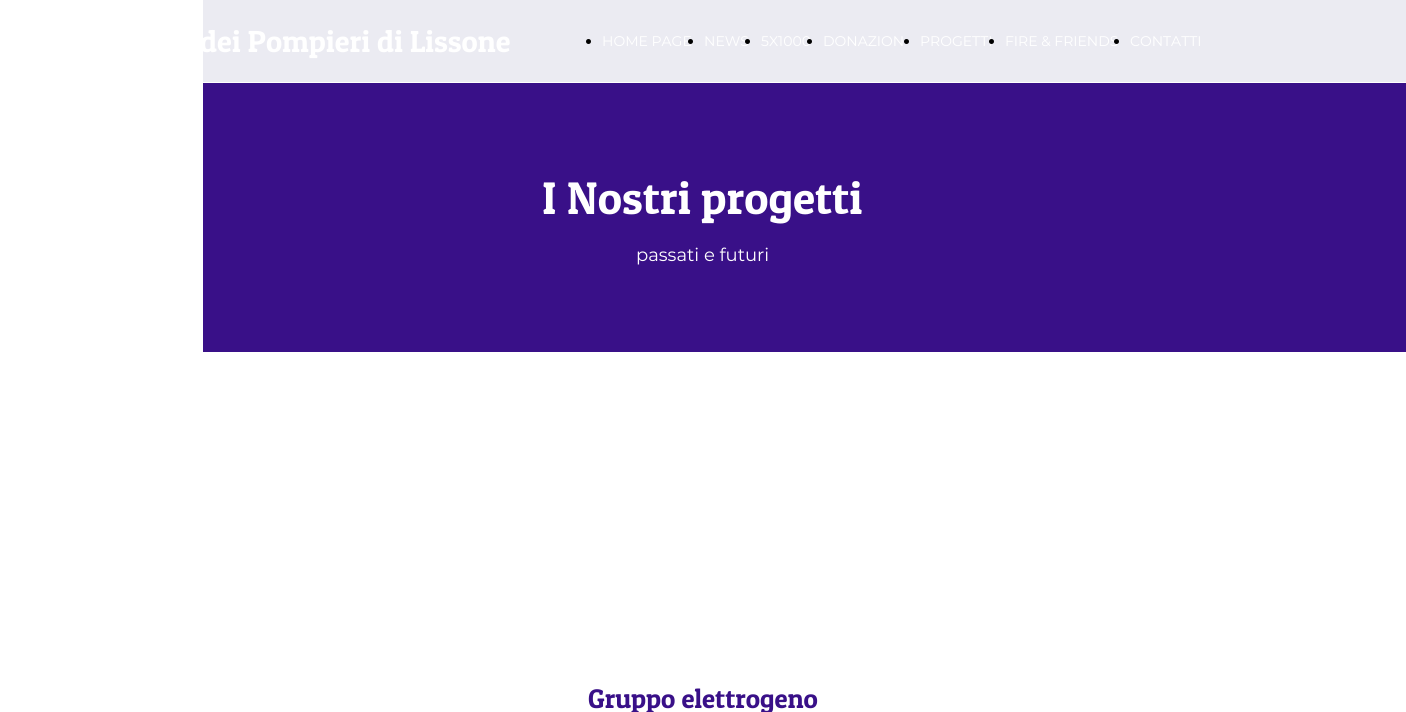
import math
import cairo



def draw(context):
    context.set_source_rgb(1, 1, 1)
    context.paint()
    context.set_source_rgb(235 / 255, 235 / 255, 242 / 255)
    context.rectangle(203, 0, 1203, 82)
    context.fill()
    context.set_source_rgb(0, 0, 0)
    context.arc(588.5, 41.5, 2.5, 0, 2 * math.pi)
    context.fill()
    context.arc(906.5, 41.5, 2.5, 0, 2 * math.pi)
    context.fill()
    context.set_source_rgb(57 / 255, 16 / 255, 136 / 255)
    context.rectangle(203, 83, 1203, 269)
    context.fill()
    context.select_font_face("Patua One")
    context.set_font_size(30.5)
    context.set_source_rgb(1, 1, 1)
    context.move_to(200, 52)
    context.show_text("dei Pompieri di Lissone")
    context.select_font_face("Montserrat")
    context.set_font_size(14)
    context.move_to(602, 46)
    context.show_text("HOME PAGE")
    context.set_source_rgb(0, 0, 0)
    context.new_path()
    context.arc(690.5, 41.5, 2.5, 0, 2 * math.pi)
    context.fill()
    context.set_source_rgb(1, 1, 1)
    context.move_to(704, 46)
    context.show_text("NEWS")
    context.set_source_rgb(0, 0, 0)
    context.new_path()
    context.arc(747.5, 41.5, 2.5, 0, 2 * math.pi)
    context.fill()
    context.set_source_rgb(1, 1, 1)
    context.move_to(761, 46)
    context.show_text("5X1000")
    context.set_source_rgb(0, 0, 0)
    context.new_path()
    context.arc(809.5, 41.5, 2.5, 0, 2 * math.pi)
    context.fill()
    context.set_source_rgb(1, 1, 1)
    context.move_to(823, 46)
    context.show_text("DONAZION")
    context.move_to(920, 46)
    context.show_text("PROGETTI")
    context.set_source_rgb(0, 0, 0)
    context.new_path()
    context.arc(991.5, 41.5, 2.5, 0, 2 * math.pi)
    context.fill()
    context.set_source_rgb(1, 1, 1)
    context.move_to(1005, 46)
    context.show_text("FIRE & FRIENDS")
    context.set_source_rgb(0, 0, 0)
    context.new_path()
    context.arc(1116.5, 41.5, 2.5, 0, 2 * math.pi)
    context.fill()
    context.set_source_rgb(1, 1, 1)
    context.move_to(1130, 46)
    context.show_text("CONTATTI")
    context.select_font_face("Patua One")
    context.set_font_size(45.75)
    context.move_to(542, 214)
    context.show_text("I Nostri progetti")
    context.select_font_face("Montserrat")
    context.set_font_size(18)
    context.move_to(636, 261)
    context.show_text("passati e futuri")
    context.select_font_face("Patua One")
    context.set_font_size(27)
    context.set_source_rgb(57 / 255, 16 / 255, 136 / 255)
    context.move_to(588, 708)
    context.show_text("Gruppo elettrogeno")


surface = cairo.ImageSurface(cairo.Format.RGB24, 1406, 712)
context = cairo.Context(surface)
options = cairo.FontOptions()
options.set_hint_metrics(cairo.HintMetrics.OFF)
options.set_hint_style(cairo.HintStyle.NONE)
context.set_font_options(options)
context.set_miter_limit(4)
draw(context)
surface.write_to_png("out.png")
